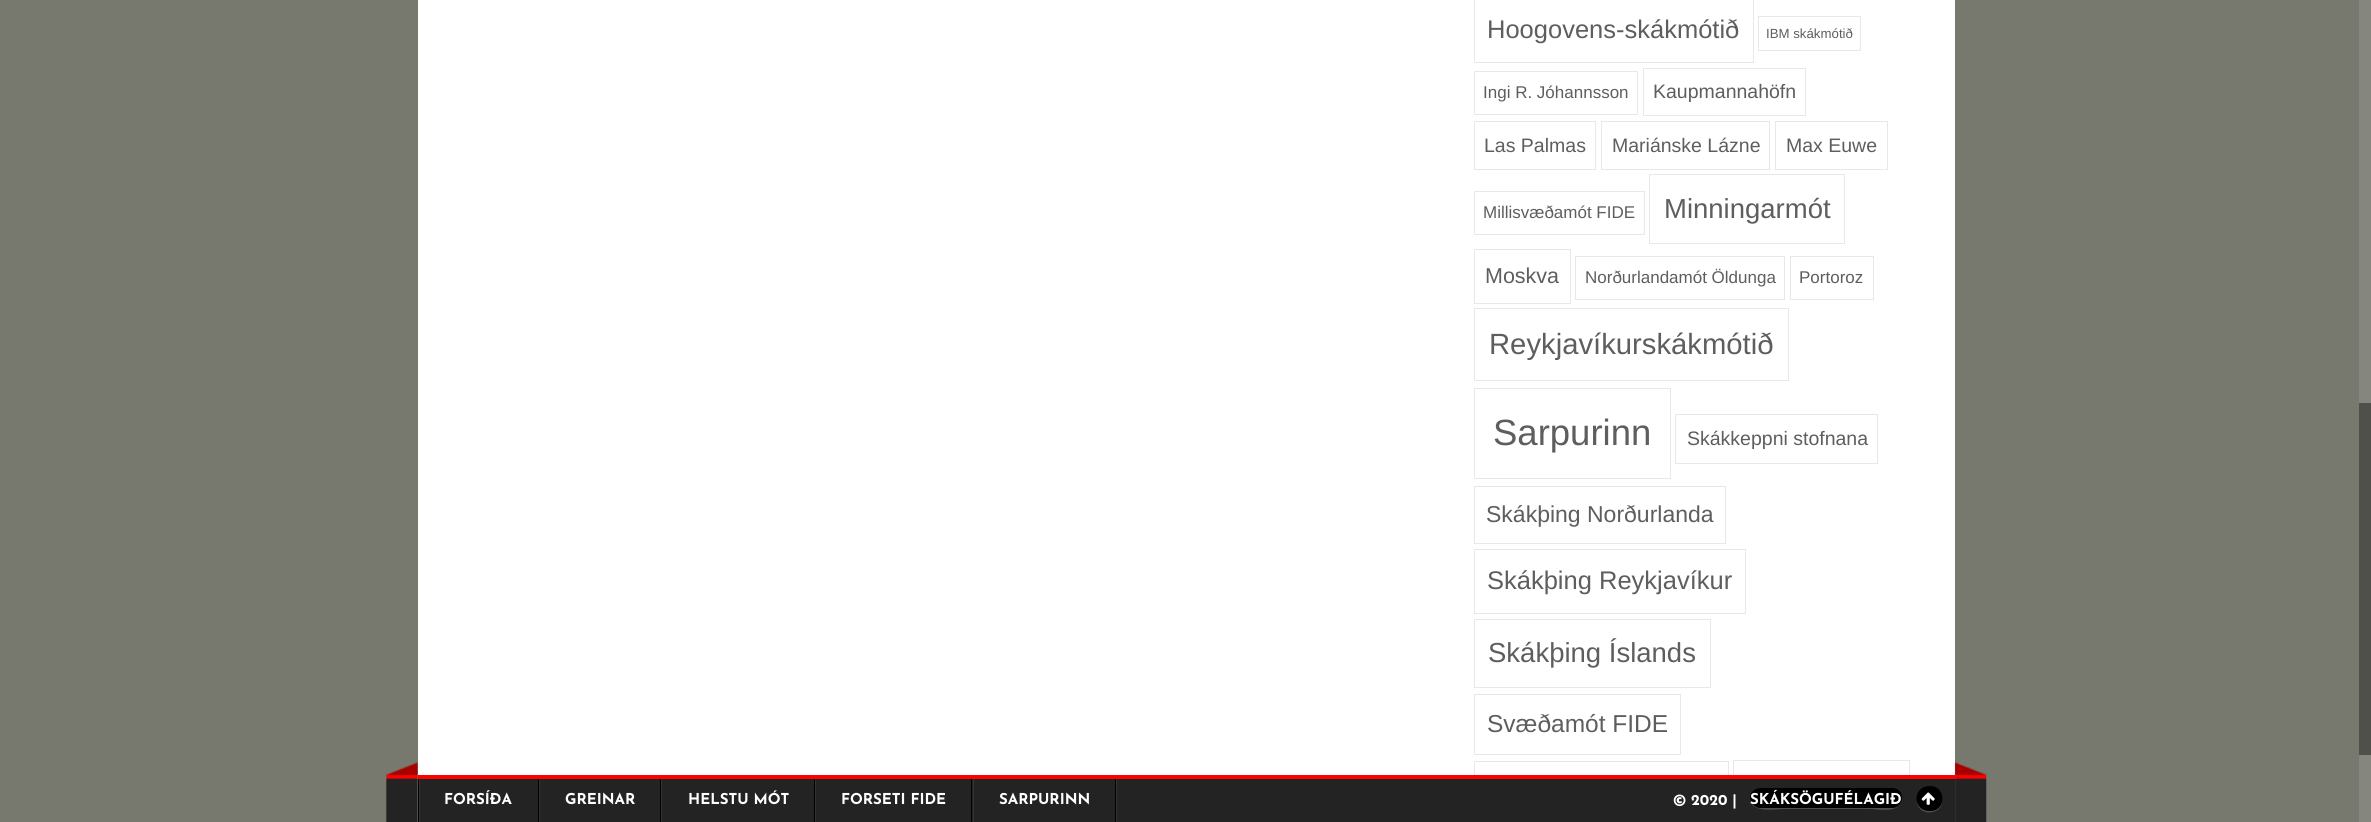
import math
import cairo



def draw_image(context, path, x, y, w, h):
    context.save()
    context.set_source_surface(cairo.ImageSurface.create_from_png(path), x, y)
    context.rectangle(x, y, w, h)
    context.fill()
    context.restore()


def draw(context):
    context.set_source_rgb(119 / 255, 121 / 255, 110 / 255)
    context.paint()
    context.set_source_rgb(1, 1, 1)
    context.rectangle(418, 0, 1537, 775)
    context.fill()
    context.rectangle(1474.5, -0.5, 279, 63)
    context.set_source_rgb(232 / 255, 232 / 255, 232 / 255)
    context.set_line_width(1)
    context.stroke()
    context.rectangle(1758.5, 16.5, 102, 34)
    context.stroke()
    context.rectangle(1474.5, 71.5, 163, 43)
    context.stroke()
    context.rectangle(1643.5, 68.5, 162, 47)
    context.stroke()
    context.rectangle(1474.5, 121.5, 121, 48)
    context.stroke()
    context.rectangle(1601.5, 121.5, 168, 48)
    context.stroke()
    context.rectangle(1775.5, 121.5, 112, 48)
    context.stroke()
    context.rectangle(1474.5, 191.5, 170, 43)
    context.stroke()
    context.rectangle(1649.5, 174.5, 195, 69)
    context.stroke()
    context.rectangle(1474.5, 249.5, 96, 54)
    context.stroke()
    context.rectangle(1575.5, 256.5, 209, 43)
    context.stroke()
    context.rectangle(1790.5, 256.5, 83, 43)
    context.stroke()
    context.rectangle(1474.5, 308.5, 314, 72)
    context.stroke()
    context.rectangle(1474.5, 388.5, 196, 90)
    context.stroke()
    context.rectangle(1675.5, 414.5, 202, 49)
    context.stroke()
    context.rectangle(1474.5, 486.5, 251, 57)
    context.stroke()
    context.rectangle(1474.5, 549.5, 271, 64)
    context.stroke()
    context.rectangle(1474.5, 619.5, 236, 68)
    context.stroke()
    context.rectangle(1474.5, 694.5, 206, 60)
    context.stroke()
    context.rectangle(1474.5, 761.5, 254, 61)
    context.stroke()
    context.rectangle(1733.5, 760.5, 176, 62)
    context.stroke()
    context.set_source_rgb(35 / 255, 35 / 255, 35 / 255)
    context.rectangle(420, 779, 1535, 43)
    context.fill()
    context.set_source_rgb(1, 0, 0)
    context.rectangle(418, 775, 1537, 4)
    context.fill()
    draw_image(context, "images/1.png", 386, 762, 32, 60)
    context.set_source_rgb(51 / 255, 51 / 255, 51 / 255)
    context.rectangle(1116, 779, 1, 43)
    context.fill()
    context.set_source_rgb(0, 0, 0)
    context.rectangle(418, 779, 1, 43)
    context.fill()
    context.rectangle(538, 779, 1, 43)
    context.fill()
    context.set_source_rgb(51 / 255, 51 / 255, 51 / 255)
    context.rectangle(419, 779, 1, 43)
    context.fill()
    context.set_source_rgb(0, 0, 0)
    context.rectangle(660, 779, 1, 43)
    context.fill()
    context.set_source_rgb(51 / 255, 51 / 255, 51 / 255)
    context.rectangle(539, 779, 1, 43)
    context.fill()
    context.set_source_rgb(0, 0, 0)
    context.rectangle(814, 779, 1, 43)
    context.fill()
    context.set_source_rgb(51 / 255, 51 / 255, 51 / 255)
    context.rectangle(661, 779, 1, 43)
    context.fill()
    context.set_source_rgb(0, 0, 0)
    context.rectangle(971, 779, 1, 43)
    context.fill()
    context.set_source_rgb(51 / 255, 51 / 255, 51 / 255)
    context.rectangle(815, 779, 1, 43)
    context.fill()
    context.set_source_rgb(0, 0, 0)
    context.rectangle(1115, 779, 1, 43)
    context.fill()
    context.set_source_rgb(51 / 255, 51 / 255, 51 / 255)
    context.rectangle(973, 779, 1, 43)
    context.fill()
    context.set_source_rgb(79 / 255, 79 / 255, 79 / 255)
    context.new_path()
    context.move_to(1750, 798)
    context.curve_to(1749, 814, 1778, 809, 1783, 809)
    context.line_to(1870, 809)
    context.curve_to(1877, 809, 1898, 814, 1902, 801)
    context.curve_to(1900, 805, 1897, 808, 1892, 808)
    context.line_to(1761, 808)
    context.curve_to(1755, 808, 1750, 803, 1750, 798)
    context.close_path()
    context.fill()
    context.set_source_rgb(0, 0, 0)
    context.new_path()
    context.move_to(1761, 788)
    context.line_to(1892, 788)
    context.curve_to(1898, 788, 1902, 792, 1902, 798)
    context.curve_to(1902, 803, 1898, 808, 1892, 808)
    context.line_to(1761, 808)
    context.curve_to(1755, 808, 1750, 803, 1750, 798)
    context.curve_to(1750, 792, 1755, 788, 1761, 788)
    context.close_path()
    context.fill()
    context.set_source_rgb(79 / 255, 79 / 255, 79 / 255)
    context.new_path()
    context.move_to(1916.5, 801.5)
    context.curve_to(1918.5, 816.5, 1941.5, 816, 1942.5, 800.5)
    context.curve_to(1940.5, 814.5, 1920, 814.5, 1916.5, 801.5)
    context.close_path()
    context.fill()
    context.set_source_rgb(0, 0, 0)
    context.new_path()
    context.move_to(1930, 786)
    context.curve_to(1946.5, 786, 1946.5, 811, 1930, 811)
    context.curve_to(1912, 811, 1912, 786, 1930, 786)
    context.close_path()
    context.fill()
    draw_image(context, "images/2.png", 1921, 792, 14, 13)
    draw_image(context, "images/3.png", 1954, 762, 33, 60)
    context.set_source_rgb(133 / 255, 134 / 255, 125 / 255)
    context.rectangle(2359, 0, 12, 822)
    context.fill()
    context.set_source_rgb(80 / 255, 80 / 255, 75 / 255)
    context.rectangle(2359, 403, 12, 352)
    context.fill()
    context.select_font_face("Liberation Sans")
    context.set_font_size(25.5)
    context.set_source_rgb(94 / 255, 94 / 255, 94 / 255)
    context.move_to(1487, 38)
    context.show_text("Hoogovens-skákmótið")
    context.set_font_size(13.25)
    context.move_to(1766, 38)
    context.show_text("IBM skákmótið")
    context.set_font_size(17)
    context.move_to(1483, 98)
    context.show_text("Ingi R. Jóhannsson")
    context.set_font_size(19.5)
    context.move_to(1653, 98)
    context.show_text("Kaupmannahöfn")
    context.move_to(1484, 152)
    context.show_text("Las Palmas")
    context.move_to(1612, 152)
    context.show_text("Mariánske Lázne")
    context.move_to(1786, 152)
    context.show_text("Max Euwe")
    context.set_font_size(17)
    context.move_to(1483, 218)
    context.show_text("Millisvæðamót FIDE")
    context.set_font_size(27.5)
    context.move_to(1664, 218)
    context.show_text("Minningarmót")
    context.set_font_size(21.5)
    context.move_to(1485, 283)
    context.show_text("Moskva")
    context.set_font_size(17)
    context.move_to(1585, 283)
    context.show_text("Norðurlandamót Öldunga")
    context.move_to(1799, 283)
    context.show_text("Portoroz")
    context.set_font_size(29.25)
    context.move_to(1489, 354)
    context.show_text("Reykjavíkurskákmótið")
    context.set_font_size(36.5)
    context.move_to(1493, 445)
    context.show_text("Sarpurinn")
    context.set_font_size(19.5)
    context.move_to(1687, 445)
    context.show_text("Skákkeppni stofnana")
    context.set_font_size(23)
    context.move_to(1486, 522)
    context.show_text("Skákþing Norðurlanda")
    context.set_font_size(25.5)
    context.move_to(1487, 589)
    context.show_text("Skákþing Reykjavíkur")
    context.set_font_size(27.5)
    context.move_to(1488, 662)
    context.show_text("Skákþing Íslands")
    context.set_font_size(24.5)
    context.move_to(1487, 732)
    context.show_text("Svæðamót FIDE")
    context.select_font_face("Josefin Sans", cairo.FontSlant.NORMAL, cairo.FontWeight.BOLD)
    context.set_font_size(15)
    context.set_source_rgb(1, 1, 1)
    context.move_to(444, 804)
    context.show_text("FORSÍÐA")
    context.move_to(565, 804)
    context.show_text("GREINAR")
    context.move_to(688, 804)
    context.show_text("HELSTU MÓT")
    context.move_to(841, 804)
    context.show_text("FORSETI FIDE")
    context.move_to(999, 804)
    context.show_text("SARPURINN")
    context.move_to(1673, 805)
    context.show_text("© 2020 |")
    context.move_to(1750, 804)
    context.show_text("SKÁKSÖGUFÉLAGIÐ")


surface = cairo.ImageSurface(cairo.Format.RGB24, 2371, 822)
context = cairo.Context(surface)
options = cairo.FontOptions()
options.set_hint_metrics(cairo.HintMetrics.OFF)
options.set_hint_style(cairo.HintStyle.NONE)
context.set_font_options(options)
context.set_miter_limit(4)
draw(context)
surface.write_to_png("out.png")
